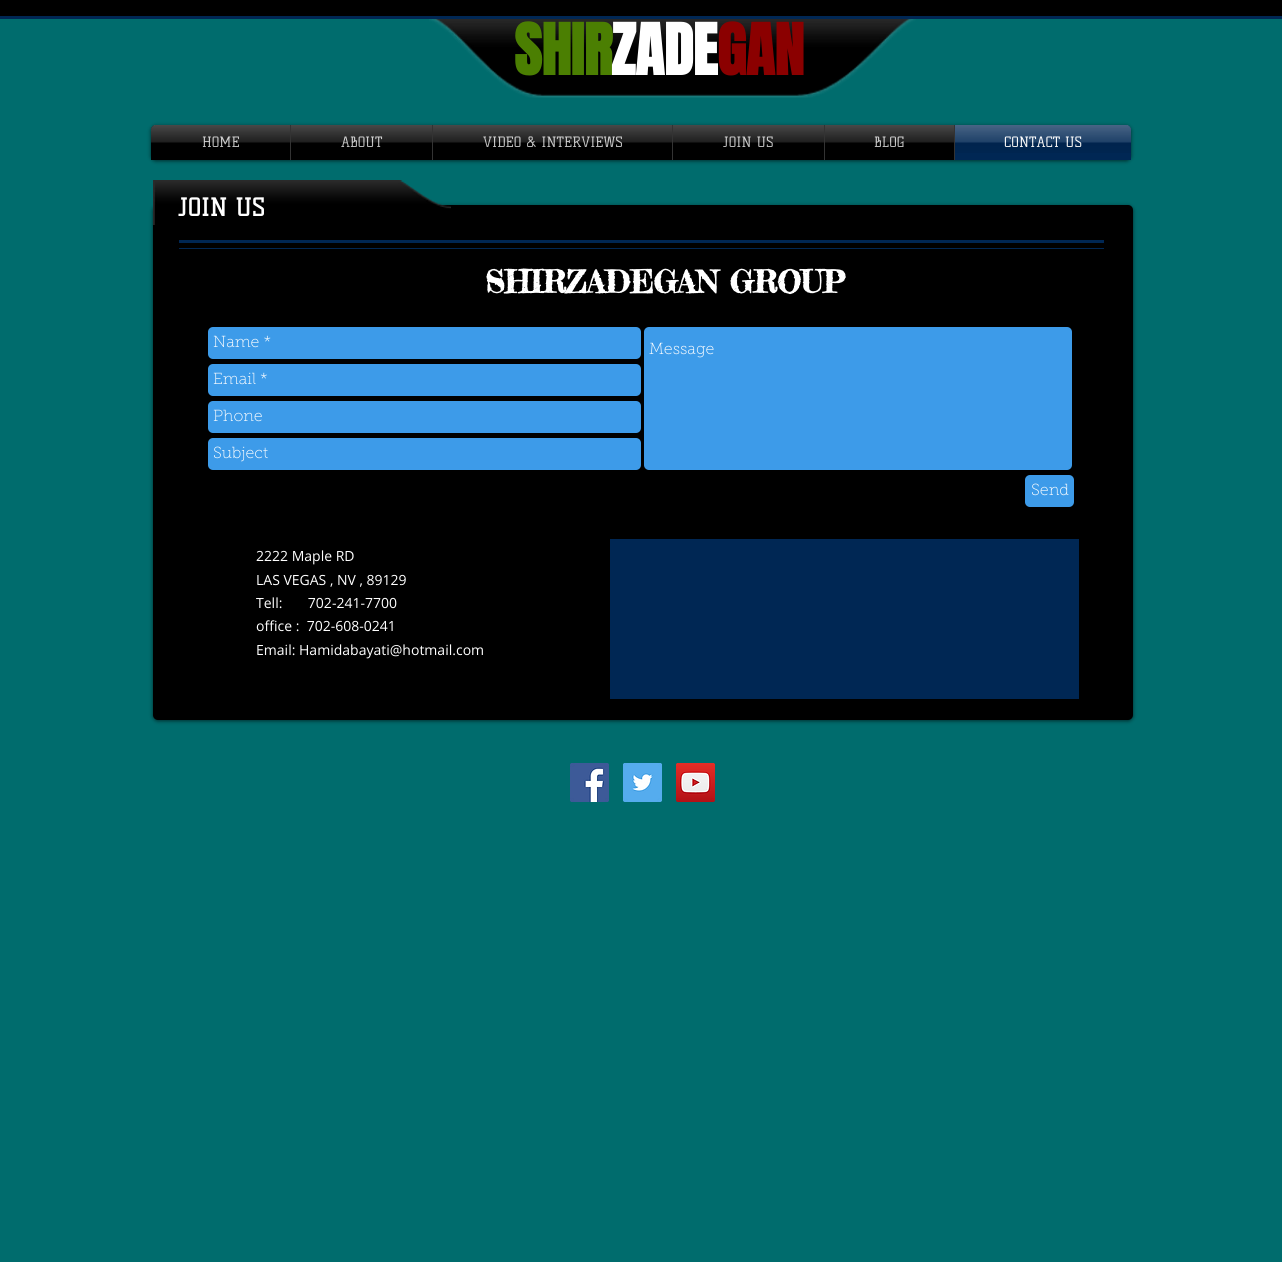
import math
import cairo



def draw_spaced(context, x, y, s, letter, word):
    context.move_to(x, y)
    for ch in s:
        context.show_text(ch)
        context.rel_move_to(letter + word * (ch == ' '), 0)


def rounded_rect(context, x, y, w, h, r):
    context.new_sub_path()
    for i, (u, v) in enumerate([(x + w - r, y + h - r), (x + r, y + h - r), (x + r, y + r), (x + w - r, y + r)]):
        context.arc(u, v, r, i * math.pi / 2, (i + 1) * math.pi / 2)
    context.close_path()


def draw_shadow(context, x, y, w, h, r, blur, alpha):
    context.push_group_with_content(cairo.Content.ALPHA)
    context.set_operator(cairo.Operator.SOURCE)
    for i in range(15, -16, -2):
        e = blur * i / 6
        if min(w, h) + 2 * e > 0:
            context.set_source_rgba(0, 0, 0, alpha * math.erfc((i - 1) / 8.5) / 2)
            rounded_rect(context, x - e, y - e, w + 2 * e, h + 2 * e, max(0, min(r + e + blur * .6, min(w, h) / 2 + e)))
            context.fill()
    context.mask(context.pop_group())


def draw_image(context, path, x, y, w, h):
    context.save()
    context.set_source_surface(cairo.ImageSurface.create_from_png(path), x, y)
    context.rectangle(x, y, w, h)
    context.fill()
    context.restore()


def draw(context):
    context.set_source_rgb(0, 108 / 255, 109 / 255)
    context.paint()
    context.set_source_rgb(0, 0, 0)
    context.rectangle(0, 0, 1282, 16)
    context.fill()
    context.set_source_rgb(0, 39 / 255, 84 / 255)
    context.rectangle(0, 16, 1282, 3)
    context.fill()
    draw_image(context, "images/1.png", 429, 19, 487, 79)
    context.set_source_rgb(0, 0, 0)
    draw_shadow(context, 151, 126, 980, 35, 5, 2, 0.6)
    draw_image(context, "images/2.png", 151, 125, 980, 5)
    context.set_source_rgb(0, 0, 0)
    context.new_path()
    context.move_to(156, 125)
    context.line_to(290, 125)
    context.line_to(290, 160)
    context.line_to(151, 160)
    context.line_to(151, 130)
    context.curve_to(151, 127, 153, 125, 156, 125)
    context.close_path()
    context.fill()
    context.rectangle(291, 125, 141, 35)
    context.fill()
    context.set_source_rgb(51 / 255, 51 / 255, 51 / 255)
    context.rectangle(290, 125, 1, 35)
    context.fill()
    context.set_source_rgb(0, 0, 0)
    context.rectangle(433, 125, 239, 35)
    context.fill()
    context.set_source_rgb(51 / 255, 51 / 255, 51 / 255)
    context.rectangle(432, 125, 1, 35)
    context.fill()
    context.set_source_rgb(0, 0, 0)
    context.rectangle(673, 125, 151, 35)
    context.fill()
    context.set_source_rgb(51 / 255, 51 / 255, 51 / 255)
    context.rectangle(672, 125, 1, 35)
    context.fill()
    context.set_source_rgb(0, 0, 0)
    context.rectangle(825, 125, 129, 35)
    context.fill()
    context.set_source_rgb(51 / 255, 51 / 255, 51 / 255)
    context.rectangle(824, 125, 1, 35)
    context.fill()
    context.set_source_rgb(0, 39 / 255, 84 / 255)
    context.new_path()
    context.move_to(954, 125)
    context.line_to(1126, 125)
    context.curve_to(1129, 125, 1131, 127, 1131, 130)
    context.line_to(1131, 160)
    context.line_to(954, 160)
    context.close_path()
    context.fill()
    context.set_source_rgb(51 / 255, 51 / 255, 51 / 255)
    context.rectangle(954, 125, 1, 35)
    context.fill()
    context.set_source_rgb(0, 0, 0)
    draw_shadow(context, 153, 206, 980, 515, 5, 2, 0.6)
    context.set_source_rgb(0, 0, 0)
    rounded_rect(context, 153, 205, 980, 515, 5)
    context.fill()
    draw_image(context, "images/9.png", 153, 180, 298, 45)
    context.set_source_rgb(0, 39 / 255, 84 / 255)
    context.rectangle(179, 240, 925, 3)
    context.fill()
    context.rectangle(179, 248, 925, 1)
    context.fill()
    context.set_source_rgb(61 / 255, 155 / 255, 233 / 255)
    rounded_rect(context, 208, 327, 433, 32, 5)
    context.fill()
    rounded_rect(context, 644, 327, 428, 143, 5)
    context.fill()
    rounded_rect(context, 208, 364, 433, 32, 5)
    context.fill()
    rounded_rect(context, 208, 401, 433, 32, 5)
    context.fill()
    rounded_rect(context, 208, 438, 433, 32, 5)
    context.fill()
    rounded_rect(context, 1025, 475, 49, 32, 5)
    context.fill()
    context.set_source_rgb(0, 39 / 255, 84 / 255)
    context.rectangle(610, 539, 469, 160)
    context.fill()
    draw_image(context, "images/10.png", 570, 763, 39, 39)
    draw_image(context, "images/11.png", 623, 763, 39, 39)
    draw_image(context, "images/12.png", 676, 763, 39, 39)
    context.select_font_face("Anton", cairo.FontSlant.NORMAL, cairo.FontWeight.BOLD)
    context.set_font_size(60)
    context.set_source_rgb(75 / 255, 127 / 255, 2 / 255)
    draw_spaced(context, 514, 75, "SHIR", -0.5, 0)
    context.set_source_rgb(1, 1, 1)
    draw_spaced(context, 611, 75, "ZADE", -0.5, 0)
    context.set_source_rgb(139 / 255, 0, 0)
    draw_spaced(context, 717, 75, "GAN", -0.5, 0)
    context.select_font_face("Kelly Slab")
    context.set_font_size(14)
    context.set_source_rgb(202 / 255, 202 / 255, 202 / 255)
    context.move_to(202, 147)
    context.show_text("HOME")
    draw_image(context, "images/3.png", 151, 125, 139, 22)
    context.move_to(341, 147)
    context.show_text("ABOUT")
    draw_image(context, "images/4.png", 291, 125, 141, 22)
    context.move_to(483, 147)
    context.show_text("VIDEO & INTERVIEWS")
    draw_image(context, "images/5.png", 433, 125, 239, 22)
    context.move_to(723, 147)
    context.show_text("JOIN US")
    draw_image(context, "images/6.png", 673, 125, 151, 22)
    context.move_to(874, 147)
    context.show_text("BLOG")
    draw_image(context, "images/7.png", 825, 125, 129, 22)
    context.set_source_rgb(1, 1, 1)
    context.move_to(1004, 147)
    context.show_text("CONTACT US")
    draw_image(context, "images/8.png", 955, 125, 176, 28)
    context.select_font_face("Kelly Slab", cairo.FontSlant.NORMAL, cairo.FontWeight.BOLD)
    context.set_font_size(24)
    context.move_to(178, 216)
    context.show_text("JOIN US")
    context.select_font_face("Fredericka the Great", cairo.FontSlant.NORMAL, cairo.FontWeight.BOLD)
    context.set_font_size(31)
    context.move_to(485, 293)
    context.show_text("SHIRZADEGAN GROUP")
    context.select_font_face("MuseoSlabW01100 Thin")
    context.set_font_size(16)
    context.move_to(213, 347)
    context.show_text("Name *")
    context.move_to(649, 354)
    context.show_text("Message")
    context.move_to(213, 384)
    context.show_text("Email *")
    context.move_to(213, 421)
    context.show_text("Phone")
    context.move_to(213, 458)
    context.show_text("Subject")
    context.move_to(1031, 495)
    context.show_text("Send")
    context.select_font_face("Open Sans")
    context.set_font_size(14)
    context.move_to(256, 561)
    context.show_text("2222 Maple RD")
    context.move_to(256, 585)
    context.show_text("LAS VEGAS , NV , 89129")
    context.move_to(256, 608)
    context.show_text("Tell:       702-241-7700")
    context.move_to(256, 631)
    context.show_text("office :  702-608-0241")
    context.move_to(256, 655)
    context.show_text("Email: Hamidabayati@hotmail.com")


surface = cairo.ImageSurface(cairo.Format.RGB24, 1282, 1262)
context = cairo.Context(surface)
options = cairo.FontOptions()
options.set_hint_metrics(cairo.HintMetrics.OFF)
options.set_hint_style(cairo.HintStyle.NONE)
context.set_font_options(options)
context.set_miter_limit(4)
draw(context)
surface.write_to_png("out.png")
